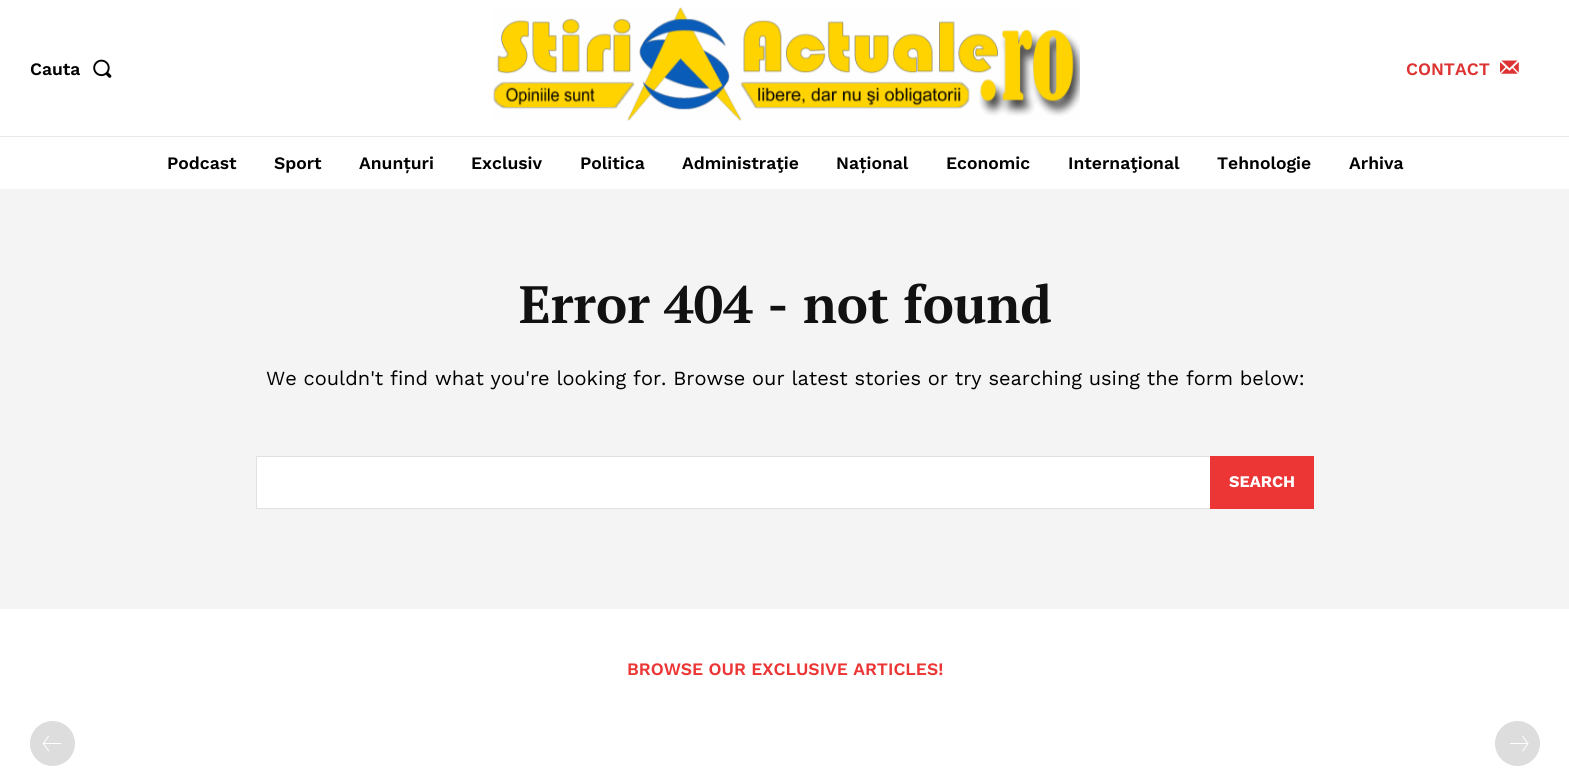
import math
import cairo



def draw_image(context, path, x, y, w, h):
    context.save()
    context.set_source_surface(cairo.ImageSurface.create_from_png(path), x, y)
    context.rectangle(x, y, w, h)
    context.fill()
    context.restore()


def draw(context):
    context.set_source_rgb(1, 1, 1)
    context.paint()
    draw_image(context, "images/1.png", 93, 59, 19, 19)
    draw_image(context, "images/2.png", 493, 7, 587, 114)
    draw_image(context, "images/3.png", 1500, 60, 19, 14)
    context.set_source_rgb(234 / 255, 234 / 255, 234 / 255)
    context.rectangle(0, 136, 1569, 1)
    context.fill()
    context.set_source_rgb(244 / 255, 244 / 255, 244 / 255)
    context.rectangle(0, 189, 1569, 420)
    context.fill()
    context.set_source_rgb(1, 1, 1)
    context.rectangle(257, 457, 953, 51)
    context.fill()
    context.rectangle(256.5, 456.5, 1057, 52)
    context.set_source_rgb(225 / 255, 225 / 255, 225 / 255)
    context.set_line_width(1)
    context.stroke()
    context.set_source_rgb(236 / 255, 53 / 255, 53 / 255)
    context.rectangle(1210, 456, 104, 53)
    context.fill()
    context.set_source_rgb(221 / 255, 221 / 255, 221 / 255)
    context.arc(52.5, 743.5, 22.5, 0, 2 * math.pi)
    context.fill()
    draw_image(context, "images/4.png", 42, 735, 20, 17)
    context.arc(1517.5, 743.5, 22.5, 0, 2 * math.pi)
    context.fill()
    draw_image(context, "images/5.png", 1510, 735, 19, 17)
    context.select_font_face("Work Sans SemiBold")
    context.set_font_size(17.5)
    context.set_source_rgb(0, 0, 0)
    context.move_to(30, 75)
    context.show_text("Cauta")
    context.set_source_rgb(221 / 255, 51 / 255, 51 / 255)
    context.move_to(1406, 75)
    context.show_text("CONTACT")
    context.set_source_rgb(0, 0, 0)
    context.move_to(167, 169)
    context.show_text("Podcast")
    context.move_to(274, 169)
    context.show_text("Sport")
    context.move_to(359, 169)
    context.show_text("Anunțuri")
    context.move_to(471, 169)
    context.show_text("Exclusiv")
    context.move_to(580, 169)
    context.show_text("Politica")
    context.move_to(682, 169)
    context.show_text("Administraţie")
    context.move_to(836, 169)
    context.show_text("Național")
    context.move_to(946, 169)
    context.show_text("Economic")
    context.move_to(1068, 169)
    context.show_text("Internaţional")
    context.move_to(1217, 169)
    context.show_text("Tehnologie")
    context.move_to(1349, 169)
    context.show_text("Arhiva")
    context.select_font_face("PT Serif", cairo.FontSlant.NORMAL, cairo.FontWeight.BOLD)
    context.set_font_size(52.5)
    context.set_source_rgb(17 / 255, 17 / 255, 17 / 255)
    context.move_to(519, 323)
    context.show_text("Error 404 - not found")
    context.select_font_face("Work Sans")
    context.set_font_size(20)
    context.set_source_rgb(0, 0, 0)
    context.move_to(266, 385)
    context.show_text("We couldn't find what you're looking for. Browse our latest stories or try searching using the form below:")
    context.select_font_face("Work Sans", cairo.FontSlant.NORMAL, cairo.FontWeight.BOLD)
    context.set_font_size(16.25)
    context.set_source_rgb(1, 1, 1)
    context.move_to(1229, 487)
    context.show_text("SEARCH")
    context.select_font_face("Work Sans SemiBold")
    context.set_font_size(17.5)
    context.set_source_rgb(236 / 255, 53 / 255, 53 / 255)
    context.move_to(627, 675)
    context.show_text("BROWSE OUR EXCLUSIVE ARTICLES!")


surface = cairo.ImageSurface(cairo.Format.RGB24, 1569, 768)
context = cairo.Context(surface)
options = cairo.FontOptions()
options.set_hint_metrics(cairo.HintMetrics.OFF)
options.set_hint_style(cairo.HintStyle.NONE)
context.set_font_options(options)
context.set_miter_limit(4)
draw(context)
surface.write_to_png("out.png")
